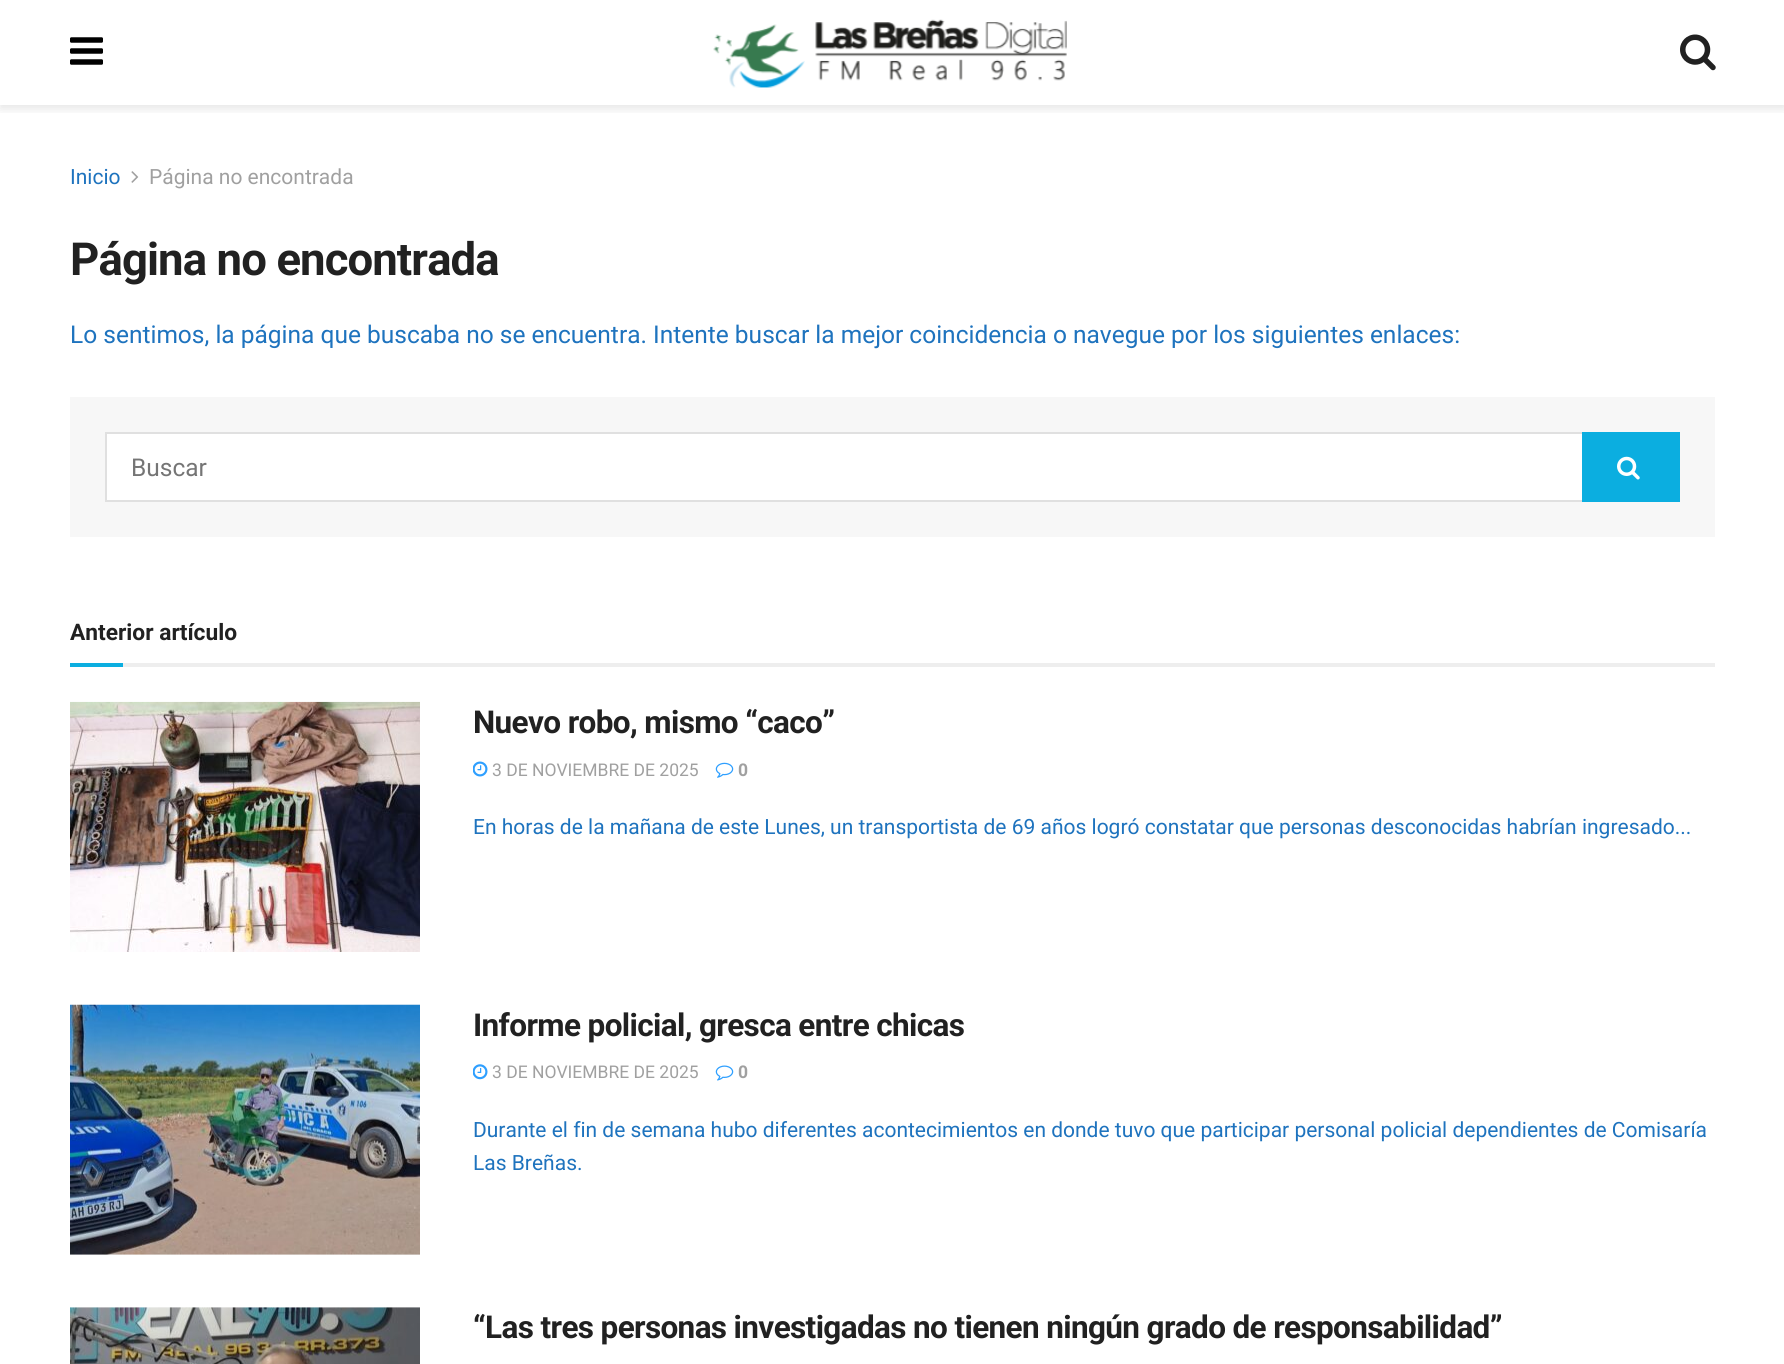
import math
import cairo



def draw_spaced(context, x, y, s, letter, word):
    context.move_to(x, y)
    for ch in s:
        context.show_text(ch)
        context.rel_move_to(letter + word * (ch == ' '), 0)


def rounded_rect(context, x, y, w, h, r):
    context.new_sub_path()
    for i, (u, v) in enumerate([(x + w - r, y + h - r), (x + r, y + h - r), (x + r, y + r), (x + w - r, y + r)]):
        context.arc(u, v, r, i * math.pi / 2, (i + 1) * math.pi / 2)
    context.close_path()


def draw_shadow(context, x, y, w, h, r, blur, alpha):
    context.push_group_with_content(cairo.Content.ALPHA)
    context.set_operator(cairo.Operator.SOURCE)
    for i in range(15, -16, -2):
        e = blur * i / 6
        if min(w, h) + 2 * e > 0:
            context.set_source_rgba(0, 0, 0, alpha * math.erfc((i - 1) / 8.5) / 2)
            rounded_rect(context, x - e, y - e, w + 2 * e, h + 2 * e, max(0, min(r + e + blur * .6, min(w, h) / 2 + e)))
            context.fill()
    context.mask(context.pop_group())


def draw_image(context, path, x, y, w, h):
    context.save()
    context.set_source_surface(cairo.ImageSurface.create_from_png(path), x, y)
    context.rectangle(x, y, w, h)
    context.fill()
    context.restore()


def draw(context):
    context.set_source_rgb(1, 1, 1)
    context.paint()
    context.save()
    context.rectangle(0, 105, 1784, 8)
    context.clip()
    context.set_source_rgb(0, 0, 0)
    draw_shadow(context, 0, 4, 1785, 105, 0, 5, 0.1)
    context.restore()
    draw_image(context, "images/1.png", 70, 37, 33, 28)
    draw_image(context, "images/2.png", 713, 19, 354, 69)
    draw_image(context, "images/3.png", 1680, 34, 36, 37)
    draw_image(context, "images/4.png", 131, 171, 8, 12)
    context.set_source_rgb(247 / 255, 247 / 255, 247 / 255)
    context.rectangle(70, 397, 1645, 140)
    context.fill()
    context.set_source_rgb(1, 1, 1)
    context.rectangle(107, 434, 1475, 66)
    context.fill()
    context.rectangle(106, 433, 1573, 68)
    context.set_source_rgb(224 / 255, 224 / 255, 224 / 255)
    context.stroke()
    context.set_source_rgb(11 / 255, 174 / 255, 224 / 255)
    context.rectangle(1582, 432, 98, 70)
    context.fill()
    draw_image(context, "images/5.png", 1617, 456, 23, 24)
    context.set_source_rgb(238 / 255, 238 / 255, 238 / 255)
    context.rectangle(123, 663, 1592, 4)
    context.fill()
    context.set_source_rgb(11 / 255, 174 / 255, 224 / 255)
    context.rectangle(70, 663, 53, 4)
    context.fill()
    draw_image(context, "images/6.png", 70, 701, 350, 251)
    draw_image(context, "images/7.png", 473, 761, 15, 16)
    draw_image(context, "images/8.png", 715, 762, 19, 16)
    context.set_source_rgb(247 / 255, 247 / 255, 247 / 255)
    context.rectangle(70, 1254, 350, 1)
    context.fill()
    draw_image(context, "images/10.png", 364, 1004, 56, 251)
    draw_image(context, "images/9.png", 70, 1004, 350, 251)
    draw_image(context, "images/11.png", 473, 1064, 15, 16)
    draw_image(context, "images/12.png", 715, 1065, 19, 16)
    context.rectangle(70, 1307, 350, 1)
    context.fill()
    draw_image(context, "images/14.png", 364, 1307, 56, 1)
    draw_image(context, "images/13.png", 70, 1307, 350, 57)
    context.select_font_face("Roboto")
    context.set_font_size(21)
    context.set_source_rgb(30 / 255, 115 / 255, 190 / 255)
    context.move_to(70, 184)
    context.show_text("Inicio")
    context.set_source_rgb(160 / 255, 160 / 255, 160 / 255)
    context.move_to(149, 184)
    context.show_text("Página no encontrada")
    context.select_font_face("Roboto", cairo.FontSlant.NORMAL, cairo.FontWeight.BOLD)
    context.set_font_size(45.5)
    context.set_source_rgb(33 / 255, 33 / 255, 33 / 255)
    draw_spaced(context, 70, 275, "Página no encontrada", -0.9, 0)
    context.select_font_face("Roboto")
    context.set_font_size(24.5)
    context.set_source_rgb(30 / 255, 115 / 255, 190 / 255)
    context.move_to(70, 343)
    context.show_text("Lo sentimos, la página que buscaba no se encuentra. Intente buscar la mejor coincidencia o navegue por los siguientes enlaces:")
    context.set_source_rgb(117 / 255, 117 / 255, 117 / 255)
    context.move_to(131, 476)
    context.show_text("Buscar")
    context.select_font_face("Roboto", cairo.FontSlant.NORMAL, cairo.FontWeight.BOLD)
    context.set_font_size(22.75)
    context.set_source_rgb(33 / 255, 33 / 255, 33 / 255)
    context.move_to(70, 640)
    context.show_text("Anterior artículo")
    context.set_font_size(31.5)
    draw_spaced(context, 473, 733, "Nuevo robo, mismo “caco”", -0.63, 0)
    context.select_font_face("Roboto")
    context.set_font_size(17.5)
    context.set_source_rgb(160 / 255, 160 / 255, 160 / 255)
    context.move_to(492, 776)
    context.show_text("3 DE NOVIEMBRE DE 2025")
    context.select_font_face("Roboto", cairo.FontSlant.NORMAL, cairo.FontWeight.BOLD)
    context.move_to(738, 776)
    context.show_text("0")
    context.select_font_face("Roboto")
    context.set_font_size(21)
    context.set_source_rgb(30 / 255, 115 / 255, 190 / 255)
    context.move_to(473, 834)
    context.show_text("En horas de la mañana de este Lunes, un transportista de 69 años logró constatar que personas desconocidas habrían ingresado...")
    context.select_font_face("Roboto", cairo.FontSlant.NORMAL, cairo.FontWeight.BOLD)
    context.set_font_size(31.5)
    context.set_source_rgb(33 / 255, 33 / 255, 33 / 255)
    draw_spaced(context, 473, 1036, "Informe policial, gresca entre chicas", -0.63, 0)
    context.select_font_face("Roboto")
    context.set_font_size(17.5)
    context.set_source_rgb(160 / 255, 160 / 255, 160 / 255)
    context.move_to(492, 1078)
    context.show_text("3 DE NOVIEMBRE DE 2025")
    context.select_font_face("Roboto", cairo.FontSlant.NORMAL, cairo.FontWeight.BOLD)
    context.move_to(738, 1078)
    context.show_text("0")
    context.select_font_face("Roboto")
    context.set_font_size(21)
    context.set_source_rgb(30 / 255, 115 / 255, 190 / 255)
    context.move_to(473, 1137)
    context.show_text("Durante el fin de semana hubo diferentes acontecimientos en donde tuvo que participar personal policial dependientes de Comisaría")
    context.move_to(473, 1170)
    context.show_text("Las Breñas.")
    context.select_font_face("Roboto", cairo.FontSlant.NORMAL, cairo.FontWeight.BOLD)
    context.set_font_size(31.5)
    context.set_source_rgb(33 / 255, 33 / 255, 33 / 255)
    draw_spaced(context, 473, 1338, "“Las tres personas investigadas no tienen ningún grado de responsabilidad”", -0.63, 0)


surface = cairo.ImageSurface(cairo.Format.RGB24, 1784, 1364)
context = cairo.Context(surface)
options = cairo.FontOptions()
options.set_hint_metrics(cairo.HintMetrics.OFF)
options.set_hint_style(cairo.HintStyle.NONE)
context.set_font_options(options)
context.set_miter_limit(4)
draw(context)
surface.write_to_png("out.png")
